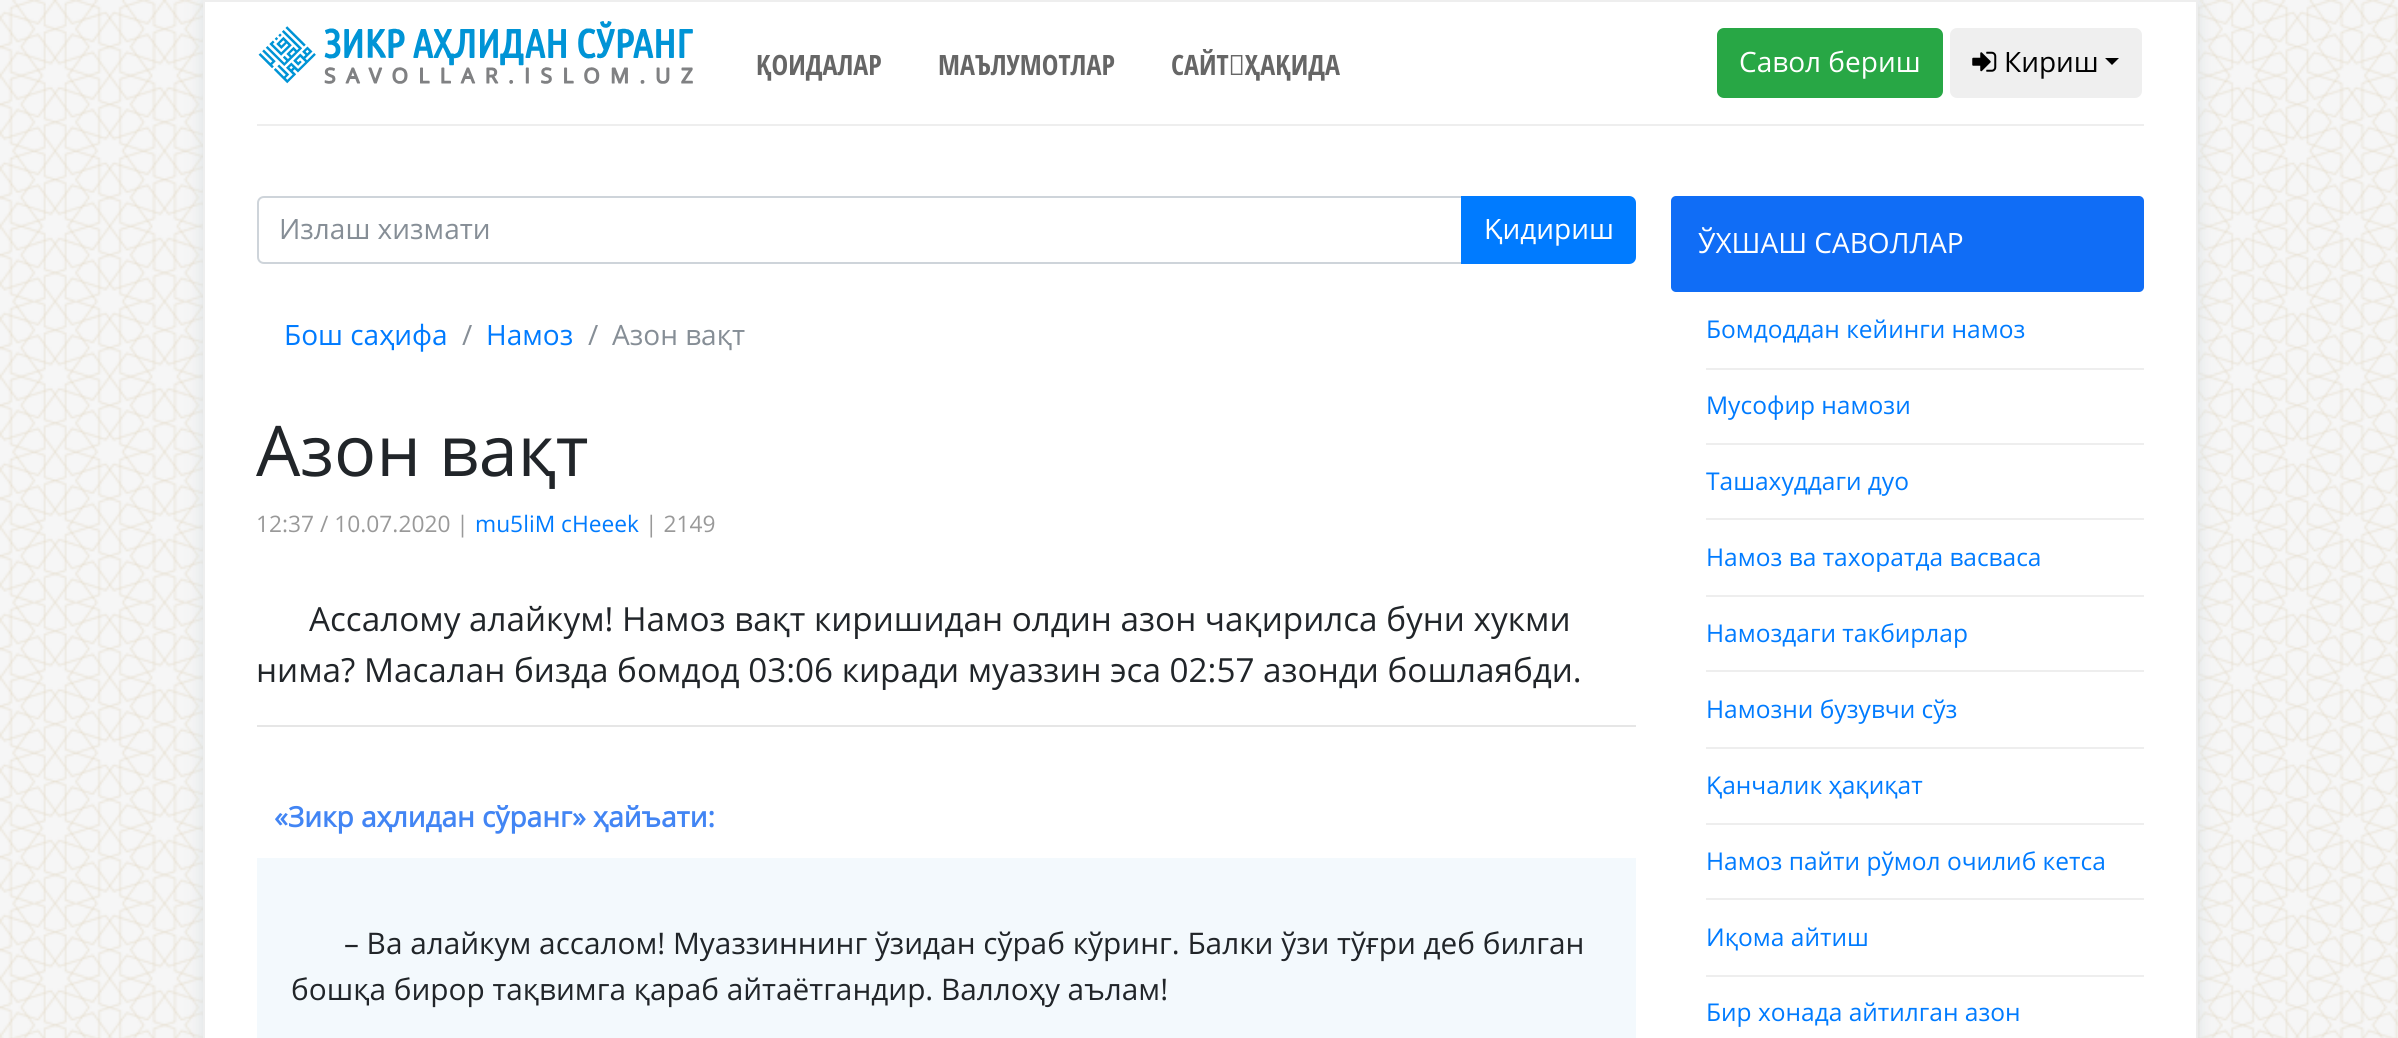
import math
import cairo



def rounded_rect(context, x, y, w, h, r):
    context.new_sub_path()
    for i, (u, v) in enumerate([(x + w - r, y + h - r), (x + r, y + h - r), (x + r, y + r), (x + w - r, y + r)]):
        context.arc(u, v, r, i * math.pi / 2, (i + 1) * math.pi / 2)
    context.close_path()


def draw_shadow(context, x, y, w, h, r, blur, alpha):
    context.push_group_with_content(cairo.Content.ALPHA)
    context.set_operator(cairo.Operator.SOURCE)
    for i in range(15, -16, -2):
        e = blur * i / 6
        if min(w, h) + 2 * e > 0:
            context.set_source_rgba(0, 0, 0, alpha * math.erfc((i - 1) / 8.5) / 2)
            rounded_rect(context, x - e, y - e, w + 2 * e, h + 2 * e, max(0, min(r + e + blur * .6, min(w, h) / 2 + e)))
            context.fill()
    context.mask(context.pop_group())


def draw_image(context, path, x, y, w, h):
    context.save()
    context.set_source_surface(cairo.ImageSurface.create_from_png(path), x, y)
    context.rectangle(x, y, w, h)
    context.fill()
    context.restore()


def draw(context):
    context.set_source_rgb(242 / 255, 242 / 255, 242 / 255)
    context.paint()
    draw_image(context, "images/1.png", 0, 0, 2398, 1038)
    context.set_source_rgb(220 / 255, 226 / 255, 227 / 255)
    draw_shadow(context, 203, 2, 1995, 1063, 0, 9, 1)
    context.set_source_rgb(1, 1, 1)
    context.rectangle(204, 1, 1993, 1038)
    context.fill_preserve()
    context.set_source_rgb(238 / 255, 238 / 255, 238 / 255)
    context.stroke()
    context.rectangle(257, 124, 1887, 2)
    context.fill()
    draw_image(context, "images/2.png", 258, 21, 435, 63)
    context.set_source_rgb(40 / 255, 167 / 255, 69 / 255)
    rounded_rect(context, 1718, 29, 224, 68, 6)
    context.fill_preserve()
    context.stroke()
    context.set_source_rgb(239 / 255, 239 / 255, 239 / 255)
    rounded_rect(context, 1950, 28, 192, 70, 7)
    context.fill()
    draw_image(context, "images/3.png", 1972, 51, 25, 21)
    context.set_source_rgb(0, 0, 0)
    context.new_path()
    context.move_to(2105, 58)
    context.line_to(2119, 58)
    context.line_to(2112, 65)
    context.close_path()
    context.fill()
    context.new_path()
    context.move_to(264, 197)
    context.line_to(1462, 197)
    context.line_to(1462, 263)
    context.line_to(264, 263)
    context.curve_to(260.5, 263, 258, 260.5, 258, 257)
    context.line_to(258, 203)
    context.curve_to(258, 199.5, 260.5, 197, 264, 197)
    context.close_path()
    context.set_source_rgb(206 / 255, 212 / 255, 218 / 255)
    context.stroke()
    context.set_source_rgb(0, 123 / 255, 1)
    context.new_path()
    context.move_to(1462, 197)
    context.line_to(1629, 197)
    context.curve_to(1632.5, 197, 1635, 199.5, 1635, 203)
    context.line_to(1635, 257)
    context.curve_to(1635, 260.5, 1632.5, 263, 1629, 263)
    context.line_to(1462, 263)
    context.close_path()
    context.fill_preserve()
    context.stroke()
    context.set_source_rgb(230 / 255, 230 / 255, 230 / 255)
    context.rectangle(257, 725, 1379, 2)
    context.fill()
    context.set_source_rgb(243 / 255, 249 / 255, 253 / 255)
    context.rectangle(257, 858, 1379, 180)
    context.fill()
    context.set_source_rgb(16 / 255, 109 / 255, 246 / 255)
    rounded_rect(context, 1671, 196, 473, 96, 5)
    context.fill()
    context.set_source_rgb(238 / 255, 238 / 255, 238 / 255)
    context.rectangle(1706, 368, 438, 2)
    context.fill()
    context.rectangle(1706, 443, 438, 2)
    context.fill()
    context.rectangle(1706, 518, 438, 2)
    context.fill()
    context.rectangle(1706, 595, 438, 2)
    context.fill()
    context.rectangle(1706, 670, 438, 2)
    context.fill()
    context.rectangle(1706, 747, 438, 2)
    context.fill()
    context.rectangle(1706, 823, 438, 2)
    context.fill()
    context.rectangle(1706, 898, 438, 2)
    context.fill()
    context.rectangle(1706, 975, 438, 2)
    context.fill()
    context.select_font_face("Open Sans Condensed", cairo.FontSlant.NORMAL, cairo.FontWeight.BOLD)
    context.set_font_size(28)
    context.set_source_rgb(102 / 255, 102 / 255, 102 / 255)
    context.move_to(756, 75)
    context.show_text("ҚОИДАЛАР")
    context.move_to(938, 75)
    context.show_text("МАЪЛУМОТЛАР")
    context.move_to(1171, 75)
    context.show_text("САЙТ ҲАҚИДА")
    context.select_font_face("Open Sans")
    context.set_source_rgb(1, 1, 1)
    context.move_to(1739, 72)
    context.show_text("Савол бериш")
    context.set_source_rgb(0, 0, 0)
    context.move_to(2004, 72)
    context.show_text("Кириш")
    context.set_source_rgb(134 / 255, 142 / 255, 150 / 255)
    context.move_to(279, 239)
    context.show_text("Излаш хизмати")
    context.set_source_rgb(1, 1, 1)
    context.move_to(1484, 239)
    context.show_text("Қидириш")
    context.set_source_rgb(0, 123 / 255, 1)
    context.move_to(284, 345)
    context.show_text("Бош саҳифа")
    context.set_source_rgb(134 / 255, 142 / 255, 150 / 255)
    context.move_to(462, 345)
    context.show_text("/")
    context.set_source_rgb(0, 123 / 255, 1)
    context.move_to(486, 345)
    context.show_text("Намоз")
    context.set_source_rgb(134 / 255, 142 / 255, 150 / 255)
    context.move_to(588, 345)
    context.show_text("/")
    context.move_to(612, 345)
    context.show_text("Азон вақт")
    context.set_font_size(70)
    context.set_source_rgb(33 / 255, 37 / 255, 41 / 255)
    context.move_to(256, 476)
    context.show_text("Азон вақт")
    context.set_font_size(22.75)
    context.set_source_rgb(153 / 255, 153 / 255, 153 / 255)
    context.move_to(256, 532)
    context.show_text("12:37 / 10.07.2020 |")
    context.set_source_rgb(0, 123 / 255, 1)
    context.move_to(475, 532)
    context.show_text("mu5liM cHeeek")
    context.set_source_rgb(153 / 255, 153 / 255, 153 / 255)
    context.move_to(645, 532)
    context.show_text("| 2149")
    context.set_font_size(33.25)
    context.set_source_rgb(33 / 255, 37 / 255, 41 / 255)
    context.move_to(309, 631)
    context.show_text("Ассалому алайкум! Намоз вақт киришидан олдин азон чақирилса буни хукми")
    context.move_to(256, 682)
    context.show_text("нима? Масалан бизда бомдод 03:06 киради муаззин эса 02:57 азонди бошлаябди.")
    context.select_font_face("Open Sans", cairo.FontSlant.NORMAL, cairo.FontWeight.BOLD)
    context.set_font_size(28)
    context.set_source_rgb(66 / 255, 133 / 255, 244 / 255)
    context.move_to(274, 827)
    context.show_text("«Зикр аҳлидан сўранг» ҳайъати:")
    context.select_font_face("Open Sans")
    context.set_font_size(29.75)
    context.set_source_rgb(33 / 255, 37 / 255, 41 / 255)
    context.move_to(344, 954)
    context.show_text("– Ва алайкум ассалом! Муаззиннинг ўзидан сўраб кўринг. Балки ўзи тўғри деб билган")
    context.move_to(291, 1000)
    context.show_text("бошқа бирор тақвимга қараб айтаётгандир. Валлоҳу аълам!")
    context.set_font_size(28)
    context.set_source_rgb(1, 1, 1)
    context.move_to(1698, 253)
    context.show_text("ЎХШАШ САВОЛЛАР")
    context.set_font_size(24.5)
    context.set_source_rgb(0, 123 / 255, 1)
    context.move_to(1706, 338)
    context.show_text("Бомдоддан кейинги намоз")
    context.move_to(1706, 414)
    context.show_text("Мусофир намози")
    context.move_to(1706, 490)
    context.show_text("Ташахуддаги дуо")
    context.move_to(1706, 566)
    context.show_text("Намоз ва тахоратда васваса")
    context.move_to(1706, 642)
    context.show_text("Намоздаги такбирлар")
    context.move_to(1706, 718)
    context.show_text("Намозни бузувчи сўз")
    context.move_to(1706, 794)
    context.show_text("Қанчалик ҳақиқат")
    context.move_to(1706, 870)
    context.show_text("Намоз пайти рўмол очилиб кетса")
    context.move_to(1706, 946)
    context.show_text("Иқома айтиш")
    context.move_to(1706, 1021)
    context.show_text("Бир хонада айтилган азон")


surface = cairo.ImageSurface(cairo.Format.RGB24, 2398, 1038)
context = cairo.Context(surface)
options = cairo.FontOptions()
options.set_hint_metrics(cairo.HintMetrics.OFF)
options.set_hint_style(cairo.HintStyle.NONE)
context.set_font_options(options)
context.set_miter_limit(4)
draw(context)
surface.write_to_png("out.png")
